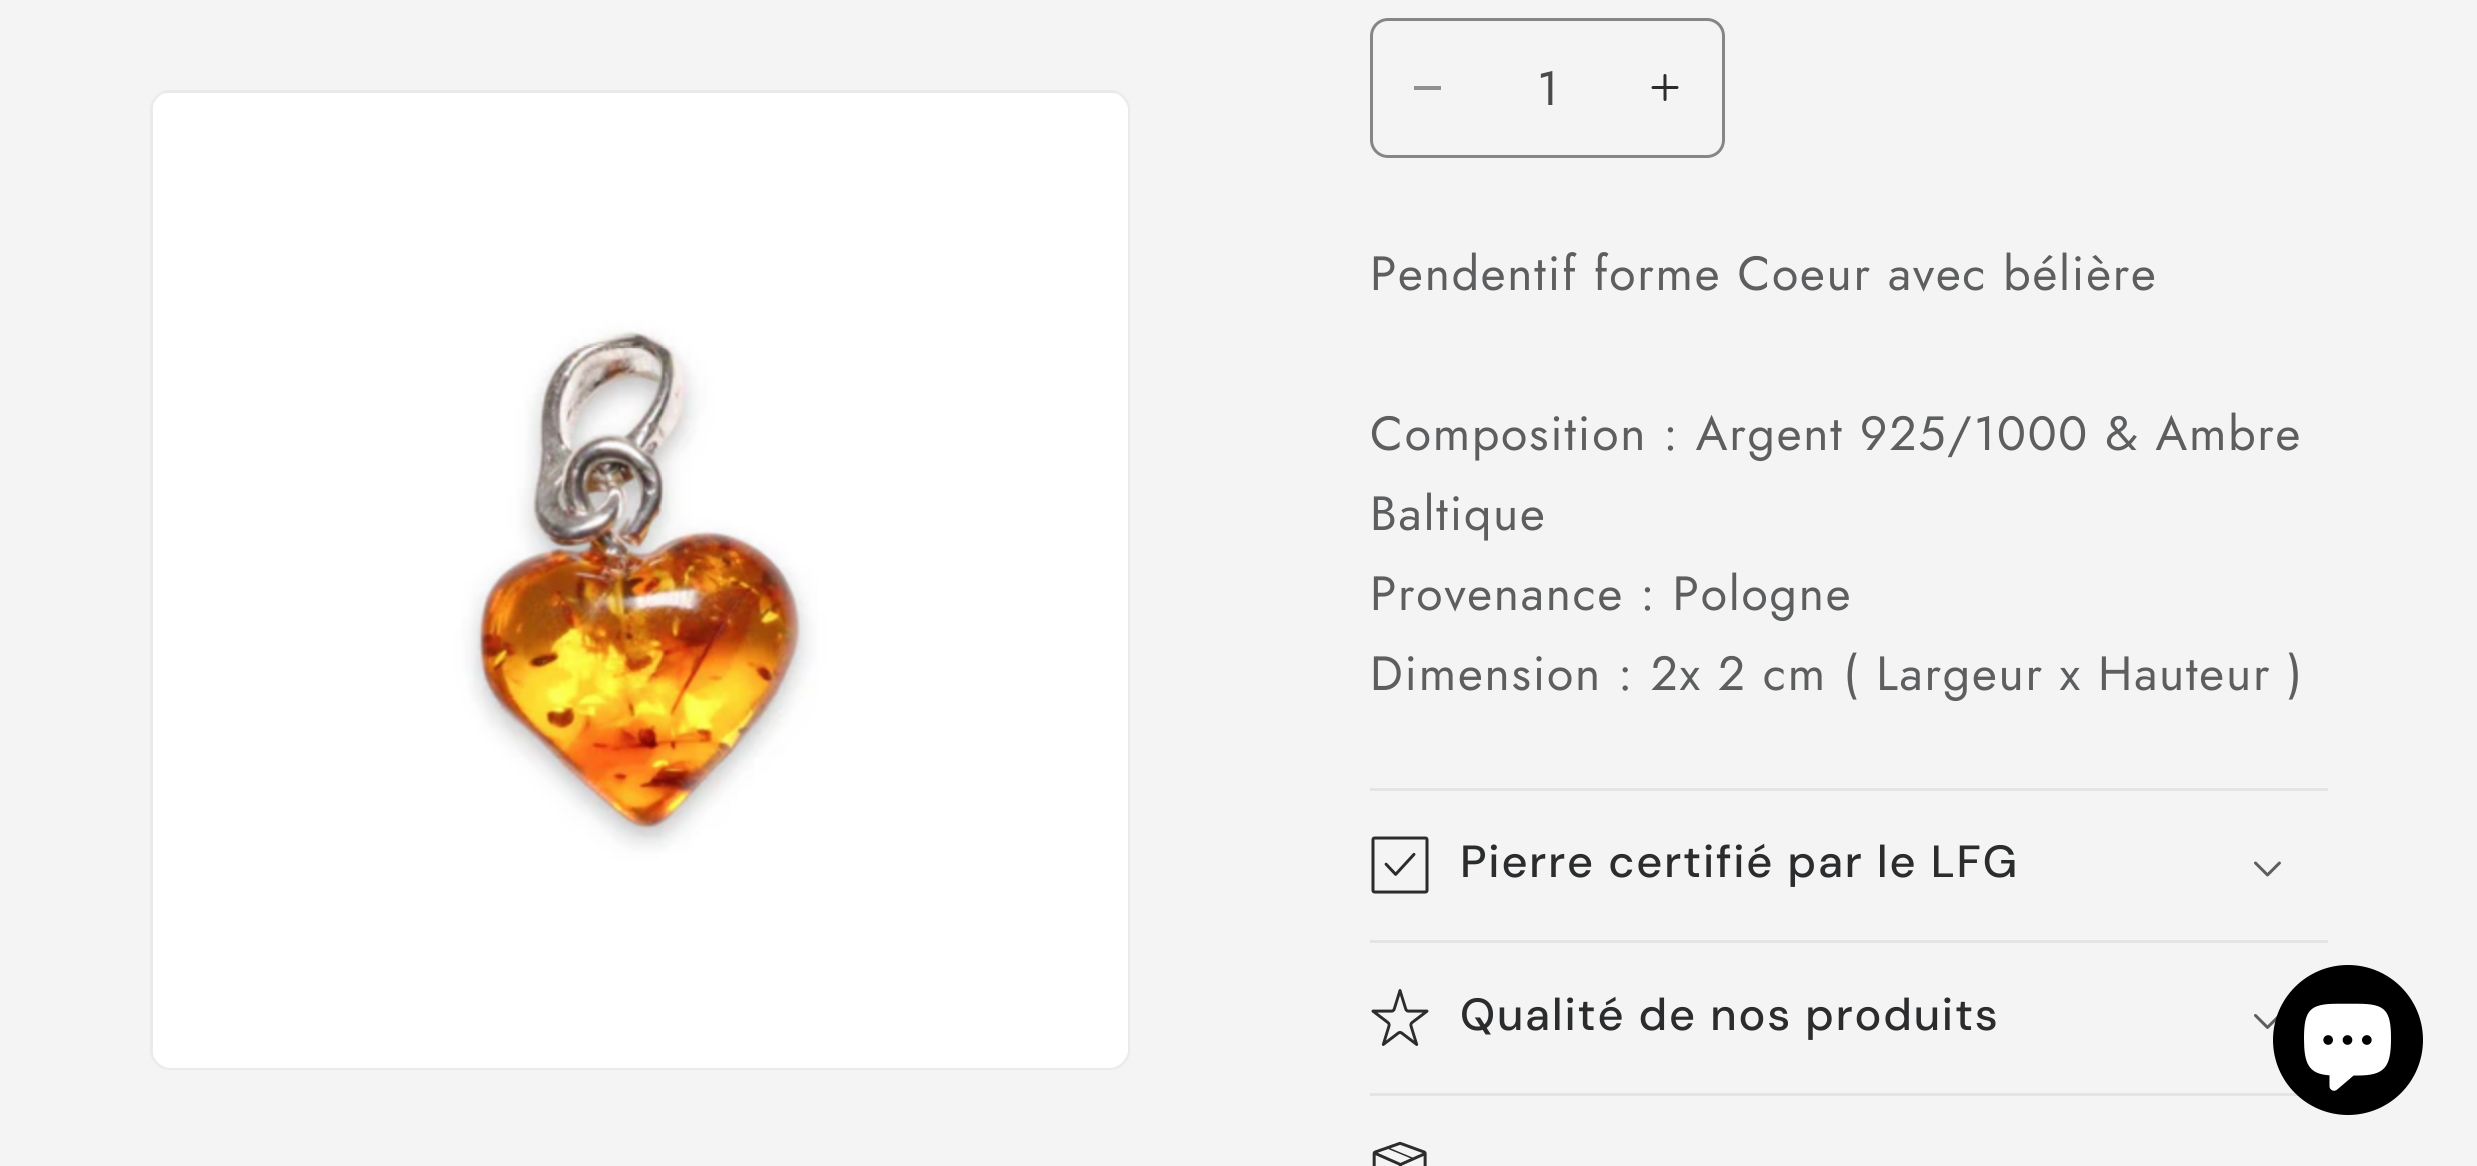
import math
import cairo



def draw_spaced(context, x, y, s, letter, word):
    context.move_to(x, y)
    for ch in s:
        context.show_text(ch)
        context.rel_move_to(letter + word * (ch == ' '), 0)


def rounded_rect(context, x, y, w, h, r):
    context.new_sub_path()
    for i, (u, v) in enumerate([(x + w - r, y + h - r), (x + r, y + h - r), (x + r, y + r), (x + w - r, y + r)]):
        context.arc(u, v, r, i * math.pi / 2, (i + 1) * math.pi / 2)
    context.close_path()


def draw_image(context, path, x, y, w, h):
    context.save()
    context.set_source_surface(cairo.ImageSurface.create_from_png(path), x, y)
    context.rectangle(x, y, w, h)
    context.fill()
    context.restore()


def draw(context):
    context.set_source_rgb(244 / 255, 244 / 255, 244 / 255)
    context.paint()
    rounded_rect(context, 151.5, 91.5, 977, 977, 18.5)
    context.set_source_rgb(234 / 255, 234 / 255, 234 / 255)
    context.set_line_width(3)
    context.stroke()
    draw_image(context, "images/1.png", 153, 93, 975, 975)
    context.set_source_rgb(144 / 255, 144 / 255, 145 / 255)
    context.rectangle(1414, 86, 27, 4)
    context.fill()
    draw_image(context, "images/2.png", 1651, 74, 28, 27)
    rounded_rect(context, 1371.5, 19.5, 352, 137, 16.5)
    context.set_source_rgb(133 / 255, 134 / 255, 135 / 255)
    context.stroke()
    context.set_source_rgb(228 / 255, 228 / 255, 228 / 255)
    context.rectangle(1370, 788, 958, 3)
    context.fill()
    context.rectangle(1370, 940, 958, 3)
    context.fill()
    draw_image(context, "images/3.png", 1371, 836, 58, 58)
    draw_image(context, "images/4.png", 2254, 861, 27, 16)
    context.rectangle(1370, 1093, 929, 3)
    context.fill()
    draw_image(context, "images/5.png", 1371, 989, 58, 57)
    draw_image(context, "images/6.png", 2254, 1014, 24, 15)
    draw_image(context, "images/7.png", 1372, 1141, 55, 25)
    context.set_source_rgb(0, 0, 0)
    context.arc(2348, 1040, 75, 0, 2 * math.pi)
    context.fill()
    draw_image(context, "images/8.png", 2304, 1003, 87, 88)
    context.select_font_face("Jost")
    context.set_font_size(48)
    context.set_source_rgb(73 / 255, 74 / 255, 75 / 255)
    context.move_to(1537, 105)
    context.show_text("1")
    context.set_source_rgb(93 / 255, 94 / 255, 95 / 255)
    draw_spaced(context, 1370, 290, "Pendentif forme Coeur avec bélière", 1.8, 0)
    draw_spaced(context, 1370, 450, "Composition : Argent 925/1000 & Ambre", 1.8, 0)
    draw_spaced(context, 1370, 530, "Baltique", 1.8, 0)
    draw_spaced(context, 1370, 610, "Provenance : Pologne", 1.8, 0)
    draw_spaced(context, 1370, 690, "Dimension : 2x 2 cm ( Largeur x Hauteur )", 1.8, 0)
    context.select_font_face("DM Sans Medium")
    context.set_font_size(45)
    context.set_source_rgb(43 / 255, 44 / 255, 45 / 255)
    draw_spaced(context, 1460, 877, "Pierre certifié par le LFG", 1.8, 0)
    draw_spaced(context, 1460, 1030, "Qualité de nos produits", 1.8, 0)


surface = cairo.ImageSurface(cairo.Format.RGB24, 2477, 1166)
context = cairo.Context(surface)
options = cairo.FontOptions()
options.set_hint_metrics(cairo.HintMetrics.OFF)
options.set_hint_style(cairo.HintStyle.NONE)
context.set_font_options(options)
context.set_miter_limit(4)
draw(context)
surface.write_to_png("out.png")
